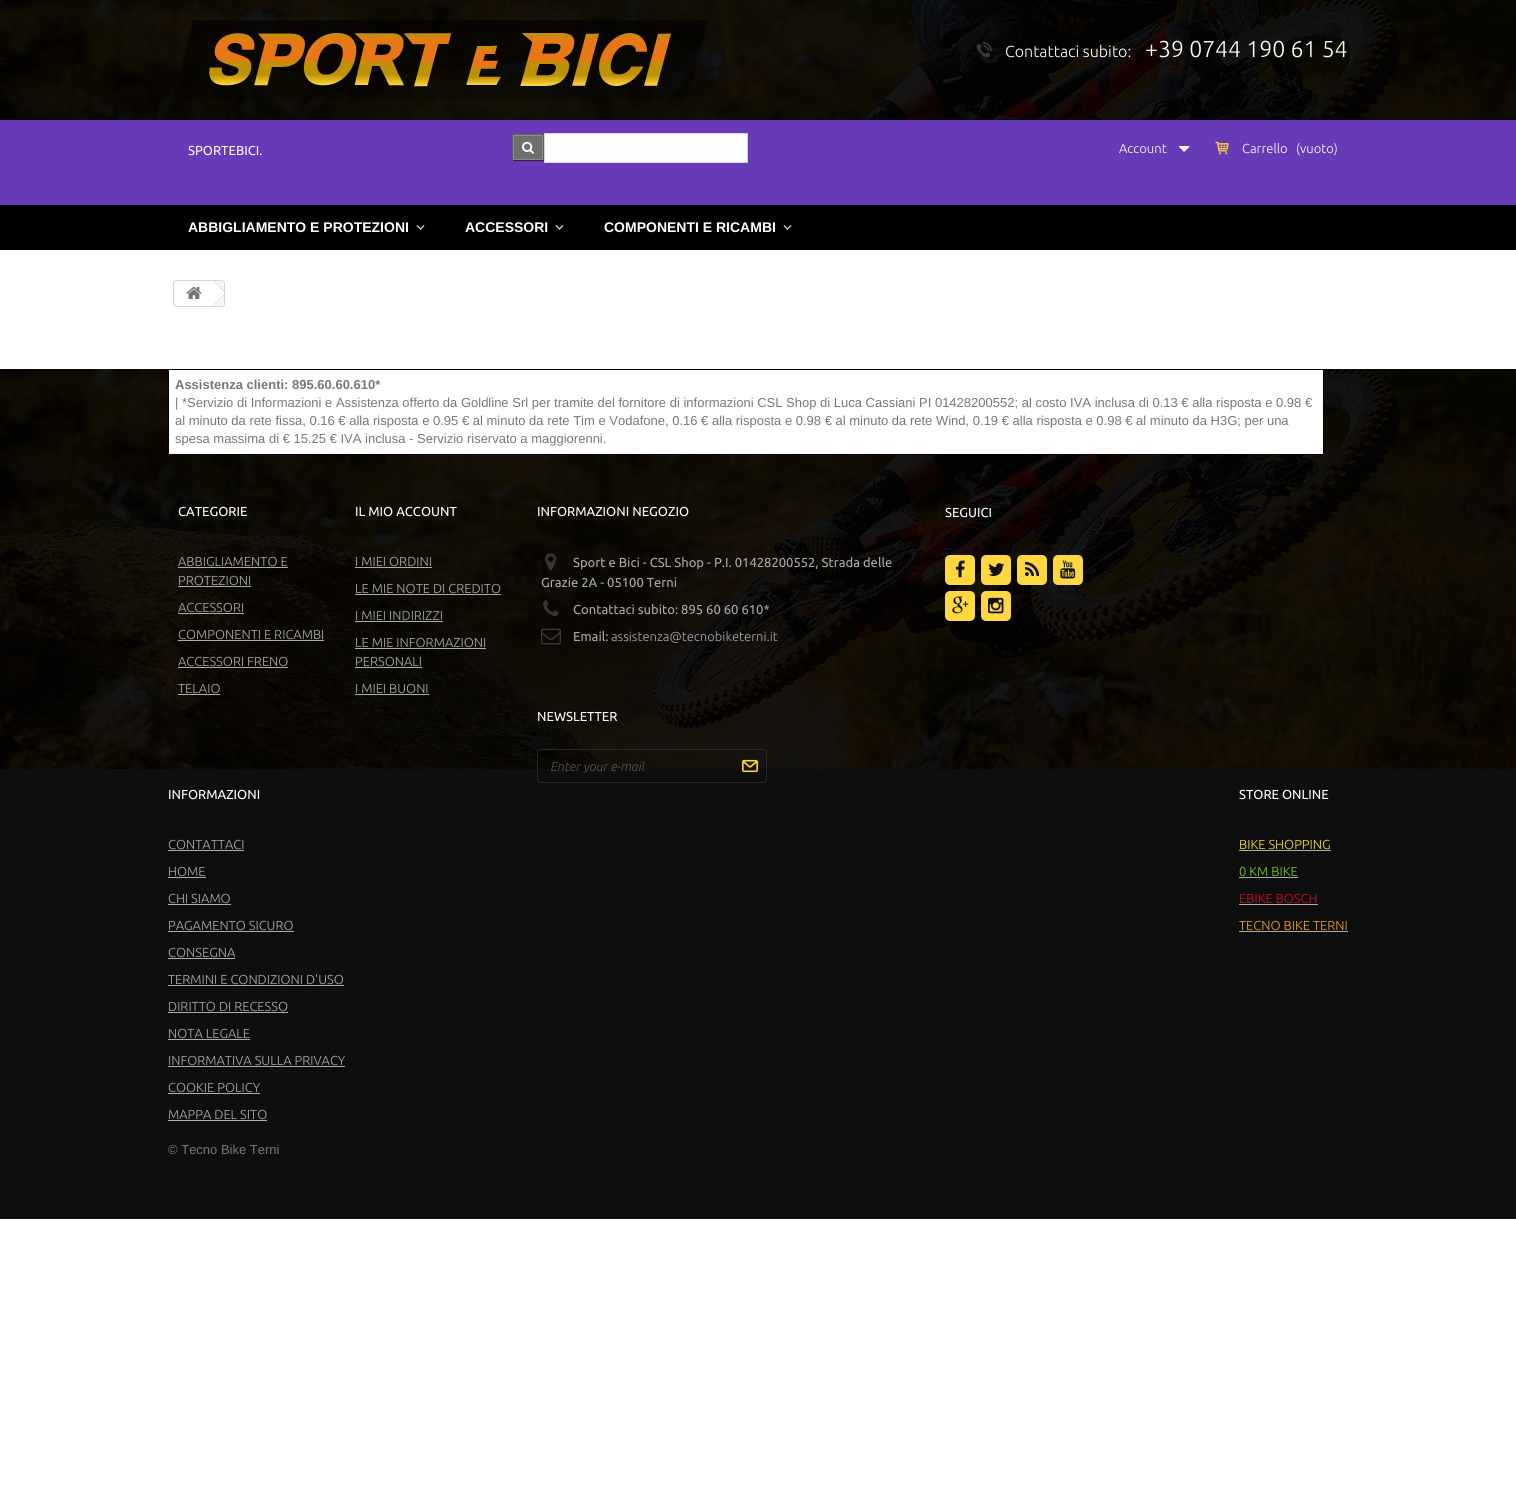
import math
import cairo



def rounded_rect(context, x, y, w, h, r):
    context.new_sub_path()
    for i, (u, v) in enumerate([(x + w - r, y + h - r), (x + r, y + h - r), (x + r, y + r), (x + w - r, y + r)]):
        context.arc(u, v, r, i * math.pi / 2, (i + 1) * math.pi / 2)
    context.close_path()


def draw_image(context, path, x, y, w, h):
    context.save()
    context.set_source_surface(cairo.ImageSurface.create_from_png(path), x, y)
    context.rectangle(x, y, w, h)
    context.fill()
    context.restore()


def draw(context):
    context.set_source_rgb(1, 1, 1)
    context.paint()
    context.set_source_rgb(103 / 255, 58 / 255, 183 / 255)
    context.rectangle(0, 120, 1516, 85)
    context.fill()
    draw_image(context, "images/1.png", 0, 0, 1516, 120)
    draw_image(context, "images/2.png", 179, 20, 527, 80)
    draw_image(context, "images/3.png", 976, 42, 16, 16)
    context.set_source_rgb(102 / 255, 102 / 255, 102 / 255)
    context.rectangle(512, 134, 32, 1)
    context.fill()
    context.set_source_rgb(95 / 255, 95 / 255, 95 / 255)
    context.rectangle(543, 134, 1, 27)
    context.fill()
    context.set_source_rgb(41 / 255, 41 / 255, 41 / 255)
    context.rectangle(512, 160, 32, 1)
    context.fill()
    context.set_source_rgb(95 / 255, 95 / 255, 95 / 255)
    context.rectangle(512, 134, 1, 27)
    context.fill()
    context.set_source_rgb(111 / 255, 111 / 255, 111 / 255)
    context.rectangle(513.5, 135.5, 29, 24)
    context.fill_preserve()
    context.set_source_rgb(139 / 255, 138 / 255, 138 / 255)
    context.set_line_width(1)
    context.stroke()
    draw_image(context, "images/4.png", 522, 141, 12, 13)
    context.set_source_rgb(1, 1, 1)
    context.rectangle(544.5, 133.5, 203, 29)
    context.fill_preserve()
    context.set_source_rgb(214 / 255, 212 / 255, 212 / 255)
    context.stroke()
    draw_image(context, "images/5.png", 1179, 146, 11, 6)
    draw_image(context, "images/6.png", 1215, 141, 14, 14)
    context.set_source_rgb(0, 0, 0)
    context.rectangle(0, 205, 1516, 45)
    context.fill()
    draw_image(context, "images/7.png", 416, 225, 9, 5)
    draw_image(context, "images/7.png", 555, 225, 9, 5)
    draw_image(context, "images/7.png", 783, 225, 9, 5)
    context.set_source_rgb(246 / 255, 246 / 255, 246 / 255)
    rounded_rect(context, 173.5, 280.5, 51, 26, 2.5)
    context.fill_preserve()
    context.set_source_rgb(214 / 255, 212 / 255, 212 / 255)
    context.stroke()
    context.set_source_rgb(1, 1, 1)
    context.new_path()
    context.move_to(178, 281)
    context.line_to(213, 281)
    context.line_to(213, 306)
    context.line_to(178, 306)
    context.curve_to(176.5, 306, 175, 304.5, 175, 303)
    context.line_to(175, 284)
    context.curve_to(175, 282.5, 176.5, 281, 178, 281)
    context.close_path()
    context.fill()
    draw_image(context, "images/8.png", 186, 286, 16, 13)
    context.new_path()
    context.move_to(215.5, 281.5)
    context.line_to(224, 290)
    context.line_to(224, 296)
    context.line_to(215.5, 304.5)
    context.curve_to(214.5, 305, 213.5, 305, 212.5, 304.5)
    context.line_to(202.5, 294.5)
    context.curve_to(202, 293.5, 202, 292.5, 202.5, 291.5)
    context.line_to(212.5, 281.5)
    context.curve_to(213.5, 281, 214.5, 281, 215.5, 281.5)
    context.close_path()
    context.fill()
    context.set_source_rgb(214 / 255, 212 / 255, 212 / 255)
    context.new_path()
    context.move_to(214.5, 281)
    context.line_to(224, 290.5)
    context.line_to(224, 291.5)
    context.line_to(214, 281.5)
    context.close_path()
    context.move_to(224, 294.5)
    context.line_to(224, 295.5)
    context.line_to(214.5, 305)
    context.line_to(214, 304.5)
    context.close_path()
    context.fill()
    context.set_source_rgb(14 / 255, 14 / 255, 14 / 255)
    context.rectangle(0, 769, 1516, 450)
    context.fill()
    draw_image(context, "images/9.png", 0, 369, 1516, 400)
    context.set_source_rgb(1, 1, 1)
    context.rectangle(168.5, 369.5, 1155, 85)
    context.fill_preserve()
    context.set_source_rgb(0, 0, 0)
    context.stroke()
    context.set_source_rgb(172 / 255, 172 / 255, 172 / 255)
    context.rectangle(178, 567, 110, 1)
    context.fill()
    context.rectangle(178, 586, 73, 1)
    context.fill()
    context.rectangle(178, 613, 66, 1)
    context.fill()
    context.rectangle(178, 640, 146, 1)
    context.fill()
    context.rectangle(178, 667, 110, 1)
    context.fill()
    context.rectangle(178, 694, 42, 1)
    context.fill()
    context.rectangle(355, 567, 77, 1)
    context.fill()
    context.rectangle(355, 594, 146, 1)
    context.fill()
    context.rectangle(355, 621, 88, 1)
    context.fill()
    context.rectangle(355, 648, 131, 1)
    context.fill()
    context.rectangle(355, 667, 67, 1)
    context.fill()
    context.rectangle(355, 694, 74, 1)
    context.fill()
    draw_image(context, "images/10.png", 545, 553, 12, 18)
    draw_image(context, "images/11.png", 543, 600, 16, 16)
    draw_image(context, "images/12.png", 541, 628, 20, 17)
    rounded_rect(context, 537.5, 749.5, 229, 33, 4.5)
    context.set_source_rgb(41 / 255, 41 / 255, 41 / 255)
    context.stroke()
    draw_image(context, "images/13.png", 742, 759, 16, 14)
    context.set_source_rgb(1, 215 / 255, 64 / 255)
    rounded_rect(context, 945, 555, 30, 30, 5)
    context.fill()
    draw_image(context, "images/14.png", 955, 560, 10, 18)
    rounded_rect(context, 981, 555, 30, 30, 5)
    context.fill()
    draw_image(context, "images/15.png", 988, 563, 17, 13)
    rounded_rect(context, 1017, 555, 30, 30, 5)
    context.fill()
    draw_image(context, "images/16.png", 1025, 561, 15, 15)
    rounded_rect(context, 1053, 555, 30, 30, 5)
    context.fill()
    draw_image(context, "images/17.png", 1060, 560, 16, 19)
    rounded_rect(context, 945, 591, 30, 30, 5)
    context.fill()
    draw_image(context, "images/18.png", 952, 596, 17, 18)
    rounded_rect(context, 981, 591, 30, 30, 5)
    context.fill()
    draw_image(context, "images/19.png", 988, 597, 16, 17)
    context.set_source_rgb(172 / 255, 172 / 255, 172 / 255)
    context.rectangle(168, 850, 76, 1)
    context.fill()
    context.rectangle(168, 877, 38, 1)
    context.fill()
    context.rectangle(168, 904, 63, 1)
    context.fill()
    context.rectangle(168, 931, 126, 1)
    context.fill()
    context.rectangle(168, 958, 67, 1)
    context.fill()
    context.rectangle(168, 985, 176, 1)
    context.fill()
    context.rectangle(168, 1012, 120, 1)
    context.fill()
    context.rectangle(168, 1039, 82, 1)
    context.fill()
    context.rectangle(168, 1066, 177, 1)
    context.fill()
    context.rectangle(168, 1093, 92, 1)
    context.fill()
    context.rectangle(168, 1120, 99, 1)
    context.fill()
    context.rectangle(1239, 850, 92, 1)
    context.fill()
    context.rectangle(1239, 877, 59, 1)
    context.fill()
    context.rectangle(1239, 904, 79, 1)
    context.fill()
    context.rectangle(1239, 931, 109, 1)
    context.fill()
    context.select_font_face("Ubuntu Light")
    context.set_font_size(16)
    context.set_source_rgb(1, 1, 1)
    context.move_to(1005, 57)
    context.show_text("Contattaci subito:")
    context.set_font_size(23)
    context.move_to(1145, 57)
    context.show_text("+39 0744 190 61 54")
    context.select_font_face("Ubuntu")
    context.set_font_size(13)
    context.move_to(188, 155)
    context.show_text("SPORTEBICI.")
    context.select_font_face("Ubuntu Light")
    context.move_to(1119, 153)
    context.show_text("Account")
    context.move_to(1242, 153)
    context.show_text("Carrello")
    context.move_to(1296, 153)
    context.show_text("(vuoto)")
    context.select_font_face("Liberation Sans", cairo.FontSlant.NORMAL, cairo.FontWeight.BOLD)
    context.set_font_size(14)
    context.move_to(188, 232)
    context.show_text("ABBIGLIAMENTO E PROTEZIONI")
    context.move_to(465, 232)
    context.show_text("ACCESSORI")
    context.move_to(604, 232)
    context.show_text("COMPONENTI E RICAMBI")
    context.set_font_size(13)
    context.set_source_rgb(119 / 255, 119 / 255, 119 / 255)
    context.move_to(175, 389)
    context.show_text("Assistenza clienti: 895.60.60.610*")
    context.select_font_face("Liberation Sans")
    context.move_to(175, 407)
    context.show_text("| *Servizio di Informazioni e Assistenza offerto da Goldline Srl per tramite del fornitore di informazioni CSL Shop di Luca Cassiani PI 01428200552; al costo IVA inclusa di 0.13 € alla risposta e 0.98 €")
    context.move_to(175, 425)
    context.show_text("al minuto da rete fissa, 0.16 € alla risposta e 0.95 € al minuto da rete Tim e Vodafone, 0.16 € alla risposta e 0.98 € al minuto da rete Wind, 0.19 € alla risposta e 0.98 € al minuto da H3G; per una")
    context.move_to(175, 443)
    context.show_text("spesa massima di € 15.25 € IVA inclusa - Servizio riservato a maggiorenni.")
    context.select_font_face("Ubuntu")
    context.set_source_rgb(1, 1, 1)
    context.move_to(178, 516)
    context.show_text("CATEGORIE")
    context.select_font_face("Ubuntu Light")
    context.set_source_rgb(172 / 255, 172 / 255, 172 / 255)
    context.move_to(178, 566)
    context.show_text("ABBIGLIAMENTO E")
    context.move_to(178, 585)
    context.show_text("PROTEZIONI")
    context.move_to(178, 612)
    context.show_text("ACCESSORI")
    context.move_to(178, 639)
    context.show_text("COMPONENTI E RICAMBI")
    context.move_to(178, 666)
    context.show_text("ACCESSORI FRENO")
    context.move_to(178, 693)
    context.show_text("TELAIO")
    context.select_font_face("Ubuntu")
    context.set_source_rgb(1, 1, 1)
    context.move_to(355, 516)
    context.show_text("IL MIO ACCOUNT")
    context.select_font_face("Ubuntu Light")
    context.set_source_rgb(172 / 255, 172 / 255, 172 / 255)
    context.move_to(355, 566)
    context.show_text("I MIEI ORDINI")
    context.move_to(355, 593)
    context.show_text("LE MIE NOTE DI CREDITO")
    context.move_to(355, 620)
    context.show_text("I MIEI INDIRIZZI")
    context.move_to(355, 647)
    context.show_text("LE MIE INFORMAZIONI")
    context.move_to(355, 666)
    context.show_text("PERSONALI")
    context.move_to(355, 693)
    context.show_text("I MIEI BUONI")
    context.select_font_face("Ubuntu")
    context.set_source_rgb(1, 1, 1)
    context.move_to(537, 516)
    context.show_text("INFORMAZIONI NEGOZIO")
    context.set_source_rgb(172 / 255, 172 / 255, 172 / 255)
    context.move_to(573, 567)
    context.show_text("Sport e Bici - CSL Shop - P.I. 01428200552, Strada delle")
    context.move_to(541, 587)
    context.show_text("Grazie 2A - 05100 Terni")
    context.move_to(573, 614)
    context.show_text("Contattaci subito: 895 60 60 610*")
    context.move_to(573, 641)
    context.show_text("Email:")
    context.select_font_face("Ubuntu Light")
    context.move_to(611, 641)
    context.show_text("assistenza@tecnobiketerni.it")
    context.select_font_face("Ubuntu")
    context.set_source_rgb(1, 1, 1)
    context.move_to(537, 721)
    context.show_text("NEWSLETTER")
    context.save()
    context.rectangle(550, 759, 173, 14)
    context.clip()
    context.select_font_face("Ubuntu Light", cairo.FontSlant.ITALIC)
    context.set_source_rgb(85 / 255, 85 / 255, 85 / 255)
    context.move_to(550, 771)
    context.show_text("Enter your e-mail")
    context.restore()
    context.move_to(945, 517)
    context.show_text("SEGUICI")
    context.move_to(168, 799)
    context.show_text("INFORMAZIONI")
    context.select_font_face("Ubuntu Light")
    context.set_source_rgb(172 / 255, 172 / 255, 172 / 255)
    context.move_to(168, 849)
    context.show_text("CONTATTACI")
    context.move_to(168, 876)
    context.show_text("HOME")
    context.move_to(168, 903)
    context.show_text("CHI SIAMO")
    context.move_to(168, 930)
    context.show_text("PAGAMENTO SICURO")
    context.move_to(168, 957)
    context.show_text("CONSEGNA")
    context.move_to(168, 984)
    context.show_text("TERMINI E CONDIZIONI D'USO")
    context.move_to(168, 1011)
    context.show_text("DIRITTO DI RECESSO")
    context.move_to(168, 1038)
    context.show_text("NOTA LEGALE")
    context.move_to(168, 1065)
    context.show_text("INFORMATIVA SULLA PRIVACY")
    context.move_to(168, 1092)
    context.show_text("COOKIE POLICY")
    context.move_to(168, 1119)
    context.show_text("MAPPA DEL SITO")
    context.select_font_face("Liberation Sans")
    context.set_source_rgb(119 / 255, 119 / 255, 119 / 255)
    context.move_to(168, 1154)
    context.show_text("© Tecno Bike Terni")
    context.select_font_face("Ubuntu")
    context.set_source_rgb(1, 1, 1)
    context.move_to(1239, 799)
    context.show_text("STORE ONLINE")
    context.select_font_face("Ubuntu Light")
    context.set_source_rgb(251 / 255, 227 / 255, 41 / 255)
    context.move_to(1239, 849)
    context.show_text("BIKE SHOPPING")
    context.set_source_rgb(124 / 255, 211 / 255, 32 / 255)
    context.move_to(1239, 876)
    context.show_text("0 KM BIKE")
    context.set_source_rgb(208 / 255, 18 / 255, 26 / 255)
    context.move_to(1239, 903)
    context.show_text("EBIKE BOSCH")
    context.set_source_rgb(245 / 255, 166 / 255, 35 / 255)
    context.move_to(1239, 930)
    context.show_text("TECNO BIKE TERNI")


surface = cairo.ImageSurface(cairo.Format.RGB24, 1516, 1497)
context = cairo.Context(surface)
options = cairo.FontOptions()
options.set_hint_metrics(cairo.HintMetrics.OFF)
options.set_hint_style(cairo.HintStyle.NONE)
context.set_font_options(options)
context.set_miter_limit(4)
draw(context)
surface.write_to_png("out.png")
